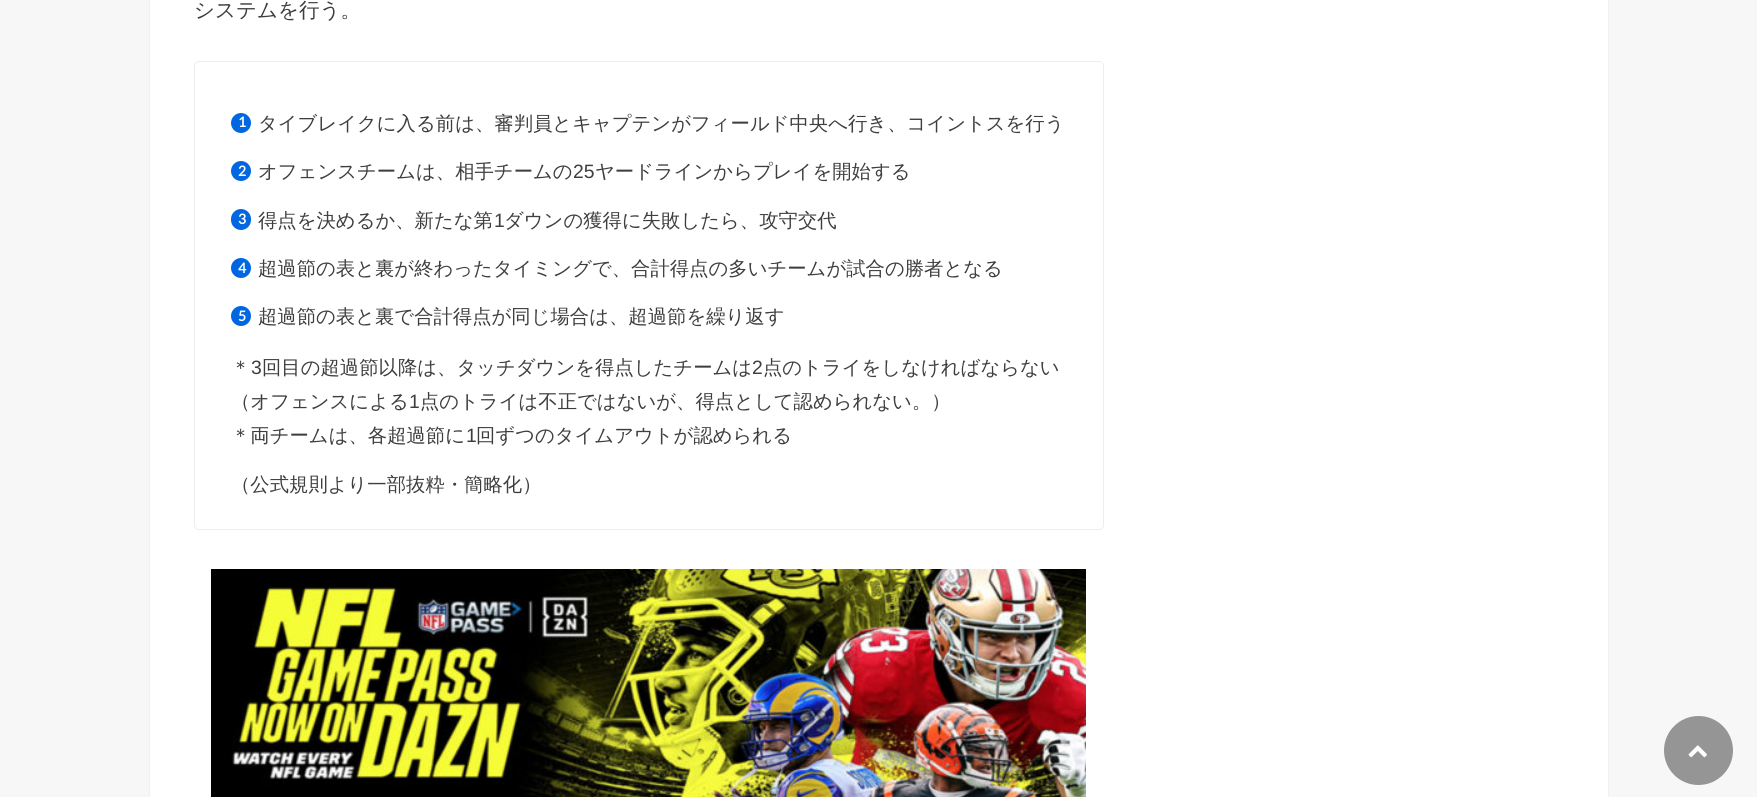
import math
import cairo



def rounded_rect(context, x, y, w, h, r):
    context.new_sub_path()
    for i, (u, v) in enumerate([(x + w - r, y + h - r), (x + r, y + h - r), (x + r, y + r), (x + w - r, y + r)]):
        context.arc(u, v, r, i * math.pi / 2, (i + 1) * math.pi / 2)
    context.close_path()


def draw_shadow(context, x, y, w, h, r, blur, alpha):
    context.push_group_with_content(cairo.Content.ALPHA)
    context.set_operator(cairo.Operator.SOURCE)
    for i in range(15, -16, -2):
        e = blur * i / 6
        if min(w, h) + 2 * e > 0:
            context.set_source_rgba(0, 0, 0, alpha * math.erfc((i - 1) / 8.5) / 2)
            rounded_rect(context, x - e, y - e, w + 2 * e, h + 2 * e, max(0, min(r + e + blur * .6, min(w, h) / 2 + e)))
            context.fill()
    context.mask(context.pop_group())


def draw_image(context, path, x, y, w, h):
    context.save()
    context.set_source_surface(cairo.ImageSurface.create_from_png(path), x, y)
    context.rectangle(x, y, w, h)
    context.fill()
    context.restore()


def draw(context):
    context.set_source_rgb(247 / 255, 247 / 255, 247 / 255)
    context.paint()
    context.set_source_rgb(221 / 255, 221 / 255, 221 / 255)
    draw_shadow(context, 150, -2, 1458, 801, 0, 0.5, 1)
    context.set_source_rgb(1, 1, 1)
    context.rectangle(150, 0, 1458, 797)
    context.fill()
    rounded_rect(context, 194.5, 61.5, 909, 468, 4.5)
    context.set_source_rgb(237 / 255, 237 / 255, 237 / 255)
    context.set_line_width(1)
    context.stroke()
    context.set_source_rgb(0, 103 / 255, 224 / 255)
    context.arc(241, 123, 10, 0, 2 * math.pi)
    context.fill()
    context.arc(241, 171, 10, 0, 2 * math.pi)
    context.fill()
    rounded_rect(context, 231, 209, 20, 21, 10)
    context.fill()
    context.arc(241, 268, 10, 0, 2 * math.pi)
    context.fill()
    context.arc(241, 316, 10, 0, 2 * math.pi)
    context.fill()
    draw_image(context, "images/1.png", 211, 569, 875, 228)
    context.set_source_rgb(149 / 255, 149 / 255, 149 / 255)
    context.arc(1698.5, 750.5, 34.5, 0, 2 * math.pi)
    context.fill()
    draw_image(context, "images/2.png", 1688, 745, 19, 13)
    context.select_font_face("WenQuanYi Zen Hei Medium")
    context.set_font_size(20.5)
    context.set_source_rgb(62 / 255, 62 / 255, 62 / 255)
    context.move_to(194, 17)
    context.show_text("システムを行う。")
    context.select_font_face("Lato", cairo.FontSlant.NORMAL, cairo.FontWeight.BOLD)
    context.set_font_size(14)
    context.set_source_rgb(1, 1, 1)
    context.move_to(238, 127)
    context.show_text("1")
    context.select_font_face("WenQuanYi Zen Hei Medium")
    context.set_font_size(19.35)
    context.set_source_rgb(62 / 255, 62 / 255, 62 / 255)
    context.move_to(258, 130)
    context.show_text("タイブレイクに入る前は、審判員とキャプテンがフィールド中央へ行き、コイントスを行う")
    context.select_font_face("Lato", cairo.FontSlant.NORMAL, cairo.FontWeight.BOLD)
    context.set_font_size(14)
    context.set_source_rgb(1, 1, 1)
    context.move_to(238, 176)
    context.show_text("2")
    context.select_font_face("WenQuanYi Zen Hei Medium")
    context.set_font_size(19.35)
    context.set_source_rgb(62 / 255, 62 / 255, 62 / 255)
    context.move_to(258, 178)
    context.show_text("オフェンスチームは、相手チームの")
    context.select_font_face("Liberation Sans")
    context.move_to(573, 178)
    context.show_text("25")
    context.select_font_face("WenQuanYi Zen Hei Medium")
    context.move_to(595, 178)
    context.show_text("ヤードラインからプレイを開始する")
    context.select_font_face("Lato", cairo.FontSlant.NORMAL, cairo.FontWeight.BOLD)
    context.set_font_size(14)
    context.set_source_rgb(1, 1, 1)
    context.move_to(238, 224)
    context.show_text("3")
    context.select_font_face("WenQuanYi Zen Hei Medium")
    context.set_font_size(19.35)
    context.set_source_rgb(62 / 255, 62 / 255, 62 / 255)
    context.move_to(258, 227)
    context.show_text("得点を決めるか、新たな第")
    context.select_font_face("Liberation Sans")
    context.move_to(494, 227)
    context.show_text("1")
    context.select_font_face("WenQuanYi Zen Hei Medium")
    context.move_to(504, 227)
    context.show_text("ダウンの獲得に失敗したら、攻守交代")
    context.select_font_face("Lato", cairo.FontSlant.NORMAL, cairo.FontWeight.BOLD)
    context.set_font_size(14)
    context.set_source_rgb(1, 1, 1)
    context.move_to(238, 273)
    context.show_text("4")
    context.select_font_face("WenQuanYi Zen Hei Medium")
    context.set_font_size(19.35)
    context.set_source_rgb(62 / 255, 62 / 255, 62 / 255)
    context.move_to(258, 275)
    context.show_text("超過節の表と裏が終わったタイミングで、合計得点の多いチームが試合の勝者となる")
    context.select_font_face("Lato", cairo.FontSlant.NORMAL, cairo.FontWeight.BOLD)
    context.set_font_size(14)
    context.set_source_rgb(1, 1, 1)
    context.move_to(238, 321)
    context.show_text("5")
    context.select_font_face("WenQuanYi Zen Hei Medium")
    context.set_font_size(19.35)
    context.set_source_rgb(62 / 255, 62 / 255, 62 / 255)
    context.move_to(258, 323)
    context.show_text("超過節の表と裏で合計得点が同じ場合は、超過節を繰り返す")
    context.move_to(231, 374)
    context.show_text("＊")
    context.select_font_face("Liberation Sans")
    context.move_to(251, 374)
    context.show_text("3")
    context.select_font_face("WenQuanYi Zen Hei Medium")
    context.move_to(262, 374)
    context.show_text("回目の超過節以降は、タッチダウンを得点したチームは")
    context.select_font_face("Liberation Sans")
    context.move_to(752, 374)
    context.show_text("2")
    context.select_font_face("WenQuanYi Zen Hei Medium")
    context.move_to(763, 374)
    context.show_text("点のトライをしなければならない")
    context.move_to(231, 408)
    context.show_text("（オフェンスによる")
    context.select_font_face("Liberation Sans")
    context.move_to(409, 408)
    context.show_text("1")
    context.select_font_face("WenQuanYi Zen Hei Medium")
    context.move_to(420, 408)
    context.show_text("点のトライは不正ではないが、得点として認められない。）")
    context.move_to(231, 442)
    context.show_text("＊両チームは、各超過節に")
    context.select_font_face("Liberation Sans")
    context.move_to(466, 442)
    context.show_text("1")
    context.select_font_face("WenQuanYi Zen Hei Medium")
    context.move_to(476, 442)
    context.show_text("回ずつのタイムアウトが認められる")
    context.move_to(231, 491)
    context.show_text("（公式規則より一部抜粋・簡略化）")


surface = cairo.ImageSurface(cairo.Format.RGB24, 1757, 797)
context = cairo.Context(surface)
options = cairo.FontOptions()
options.set_hint_metrics(cairo.HintMetrics.OFF)
options.set_hint_style(cairo.HintStyle.NONE)
context.set_font_options(options)
context.set_miter_limit(4)
draw(context)
surface.write_to_png("out.png")
